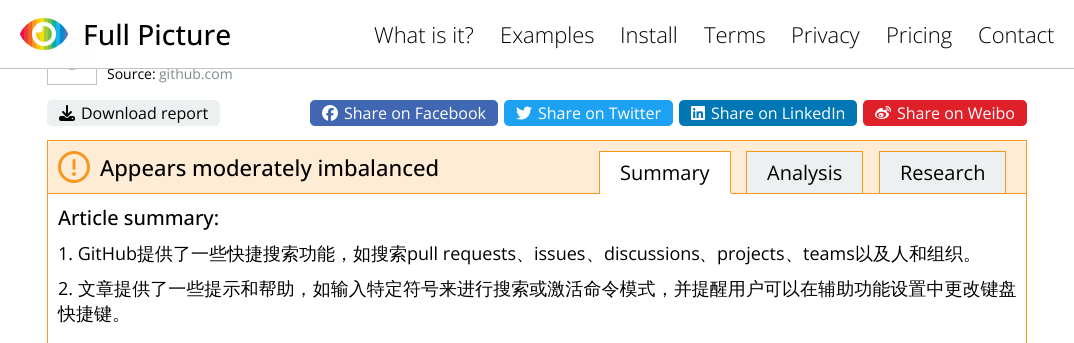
import math
import cairo



def draw_spaced(context, x, y, s, letter, word):
    context.move_to(x, y)
    for ch in s:
        context.show_text(ch)
        context.rel_move_to(letter + word * (ch == ' '), 0)


def rounded_rect(context, x, y, w, h, r):
    context.new_sub_path()
    for i, (u, v) in enumerate([(x + w - r, y + h - r), (x + r, y + h - r), (x + r, y + r), (x + w - r, y + r)]):
        context.arc(u, v, r, i * math.pi / 2, (i + 1) * math.pi / 2)
    context.close_path()


def draw_image(context, path, x, y, w, h):
    context.save()
    context.set_source_surface(cairo.ImageSurface.create_from_png(path), x, y)
    context.rectangle(x, y, w, h)
    context.fill()
    context.restore()


def draw(context):
    context.set_source_rgb(1, 1, 1)
    context.paint()
    context.rectangle(47.5, 35.5, 49, 49)
    context.set_source_rgb(189 / 255, 195 / 255, 199 / 255)
    context.set_line_width(1)
    context.stroke()
    context.set_source_rgb(253 / 255, 253 / 255, 253 / 255)
    context.rectangle(47, 35, 50, 33)
    context.fill()
    draw_image(context, "images/1.png", 20, 17, 48, 34)
    draw_image(context, "images/2.png", 61, 69, 22, 2)
    context.set_source_rgb(236 / 255, 240 / 255, 241 / 255)
    rounded_rect(context, 47, 100, 173, 26, 5)
    context.fill()
    draw_image(context, "images/3.png", 59, 105, 16, 16)
    context.set_source_rgb(66 / 255, 103 / 255, 178 / 255)
    rounded_rect(context, 310, 100, 188, 26, 5)
    context.fill()
    draw_image(context, "images/4.png", 322, 105, 16, 16)
    context.set_source_rgb(29 / 255, 161 / 255, 242 / 255)
    rounded_rect(context, 504, 100, 169, 26, 5)
    context.fill()
    draw_image(context, "images/5.png", 516, 106, 16, 14)
    context.set_source_rgb(0, 119 / 255, 181 / 255)
    rounded_rect(context, 679, 100, 178, 26, 5)
    context.fill()
    draw_image(context, "images/6.png", 691, 106, 14, 14)
    context.set_source_rgb(223 / 255, 32 / 255, 41 / 255)
    rounded_rect(context, 863, 100, 164, 26, 5)
    context.fill()
    draw_image(context, "images/7.png", 875, 106, 16, 13)
    context.rectangle(47.5, 140.5, 979, 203)
    context.set_source_rgb(247 / 255, 151 / 255, 30 / 255)
    context.stroke()
    context.set_source_rgb(1, 236 / 255, 212 / 255)
    context.new_path()
    context.move_to(52, 141)
    context.line_to(1022, 141)
    context.curve_to(1024, 141, 1026, 143, 1026, 145)
    context.line_to(1026, 193)
    context.line_to(48, 193)
    context.line_to(48, 145)
    context.curve_to(48, 143, 50, 141, 52, 141)
    context.close_path()
    context.fill()
    draw_image(context, "images/8.png", 58, 151, 32, 32)
    context.set_source_rgb(1, 1, 1)
    context.rectangle(600, 152, 130, 41)
    context.fill()
    context.set_source_rgb(247 / 255, 151 / 255, 30 / 255)
    context.rectangle(599, 151, 132, 1)
    context.fill()
    context.rectangle(48, 193, 978, 1)
    context.fill()
    context.rectangle(730, 151, 1, 43)
    context.fill()
    context.set_source_rgb(1, 1, 1)
    context.rectangle(599, 193, 132, 1)
    context.fill()
    context.set_source_rgb(247 / 255, 151 / 255, 30 / 255)
    context.rectangle(599, 151, 1, 43)
    context.fill()
    context.set_source_rgb(236 / 255, 240 / 255, 241 / 255)
    context.rectangle(746.5, 151.5, 116, 42)
    context.fill_preserve()
    context.set_source_rgb(247 / 255, 151 / 255, 30 / 255)
    context.stroke()
    context.set_source_rgb(236 / 255, 240 / 255, 241 / 255)
    context.rectangle(879.5, 151.5, 126, 42)
    context.fill_preserve()
    context.set_source_rgb(247 / 255, 151 / 255, 30 / 255)
    context.stroke()
    context.select_font_face("Open Sans Medium")
    context.set_font_size(28)
    context.set_source_rgb(0, 0, 0)
    context.move_to(83, 45)
    context.show_text("Full Picture")
    context.select_font_face("Open Sans Light")
    context.set_font_size(22)
    context.move_to(374, 43)
    context.show_text("What is it?")
    context.move_to(500, 43)
    context.show_text("Examples")
    context.move_to(620, 43)
    context.show_text("Install")
    context.move_to(704, 43)
    context.show_text("Terms")
    context.move_to(791, 43)
    context.show_text("Privacy")
    context.move_to(886, 43)
    context.show_text("Pricing")
    context.move_to(978, 43)
    context.show_text("Contact")
    context.select_font_face("Open Sans")
    context.set_font_size(14)
    context.move_to(107, 79)
    context.show_text("Source:")
    context.set_source_rgb(127 / 255, 140 / 255, 141 / 255)
    context.move_to(159, 79)
    context.show_text("github.com")
    context.set_source_rgb(189 / 255, 195 / 255, 199 / 255)
    context.rectangle(0, 68, 1074, 1)
    context.fill()
    context.set_font_size(16)
    context.set_source_rgb(0, 0, 0)
    context.move_to(81, 119)
    context.show_text("Download report")
    context.set_source_rgb(1, 1, 1)
    context.move_to(344, 119)
    context.show_text("Share on Facebook")
    context.move_to(538, 119)
    context.show_text("Share on Twitter")
    context.move_to(711, 119)
    context.show_text("Share on LinkedIn")
    context.move_to(897, 119)
    context.show_text("Share on Weibo")
    context.select_font_face("Open Sans Medium")
    context.set_font_size(22)
    context.set_source_rgb(0, 0, 0)
    context.move_to(100, 176)
    context.show_text("Appears moderately imbalanced")
    context.select_font_face("Open Sans")
    context.set_font_size(20)
    context.move_to(620, 180)
    context.show_text("Summary")
    context.move_to(767, 180)
    context.show_text("Analysis")
    context.move_to(900, 180)
    context.show_text("Research")
    context.select_font_face("Open Sans Medium")
    context.move_to(58, 225)
    context.show_text("Article summary:")
    context.select_font_face("Open Sans")
    context.set_font_size(18)
    context.move_to(58, 260)
    context.show_text("1. GitHub")
    context.select_font_face("WenQuanYi Zen Hei Medium")
    context.move_to(137, 260)
    context.show_text("提供了一些快捷搜索功能，如搜索")
    context.select_font_face("Open Sans")
    context.move_to(407, 260)
    context.show_text("pull requests")
    context.select_font_face("WenQuanYi Zen Hei Medium")
    context.move_to(516, 260)
    context.show_text("、")
    context.select_font_face("Open Sans")
    context.move_to(534, 260)
    context.show_text("issues")
    context.select_font_face("WenQuanYi Zen Hei Medium")
    context.move_to(586, 260)
    context.show_text("、")
    context.select_font_face("Open Sans")
    context.move_to(604, 260)
    context.show_text("discussions")
    context.select_font_face("WenQuanYi Zen Hei Medium")
    context.move_to(699, 260)
    context.show_text("、")
    context.select_font_face("Open Sans")
    context.move_to(717, 260)
    context.show_text("projects")
    context.select_font_face("WenQuanYi Zen Hei Medium")
    context.move_to(785, 260)
    context.show_text("、")
    context.select_font_face("Open Sans")
    context.move_to(803, 260)
    context.show_text("teams")
    context.select_font_face("WenQuanYi Zen Hei Medium")
    context.move_to(855, 260)
    context.show_text("以及人和组织。")
    context.select_font_face("Open Sans")
    draw_spaced(context, 58, 295, "2.", 0.05, 0)
    context.select_font_face("WenQuanYi Zen Hei Medium")
    draw_spaced(context, 78, 295, "文章提供了一些提示和帮助，如输入特定符号来进行搜索或激活命令模式，并提醒用户可以在辅助功能设置中更改键盘", 0.05, 0)
    context.move_to(58, 320)
    context.show_text("快捷键。")


surface = cairo.ImageSurface(cairo.Format.RGB24, 1074, 343)
context = cairo.Context(surface)
options = cairo.FontOptions()
options.set_hint_metrics(cairo.HintMetrics.OFF)
options.set_hint_style(cairo.HintStyle.NONE)
context.set_font_options(options)
context.set_miter_limit(4)
draw(context)
surface.write_to_png("out.png")
